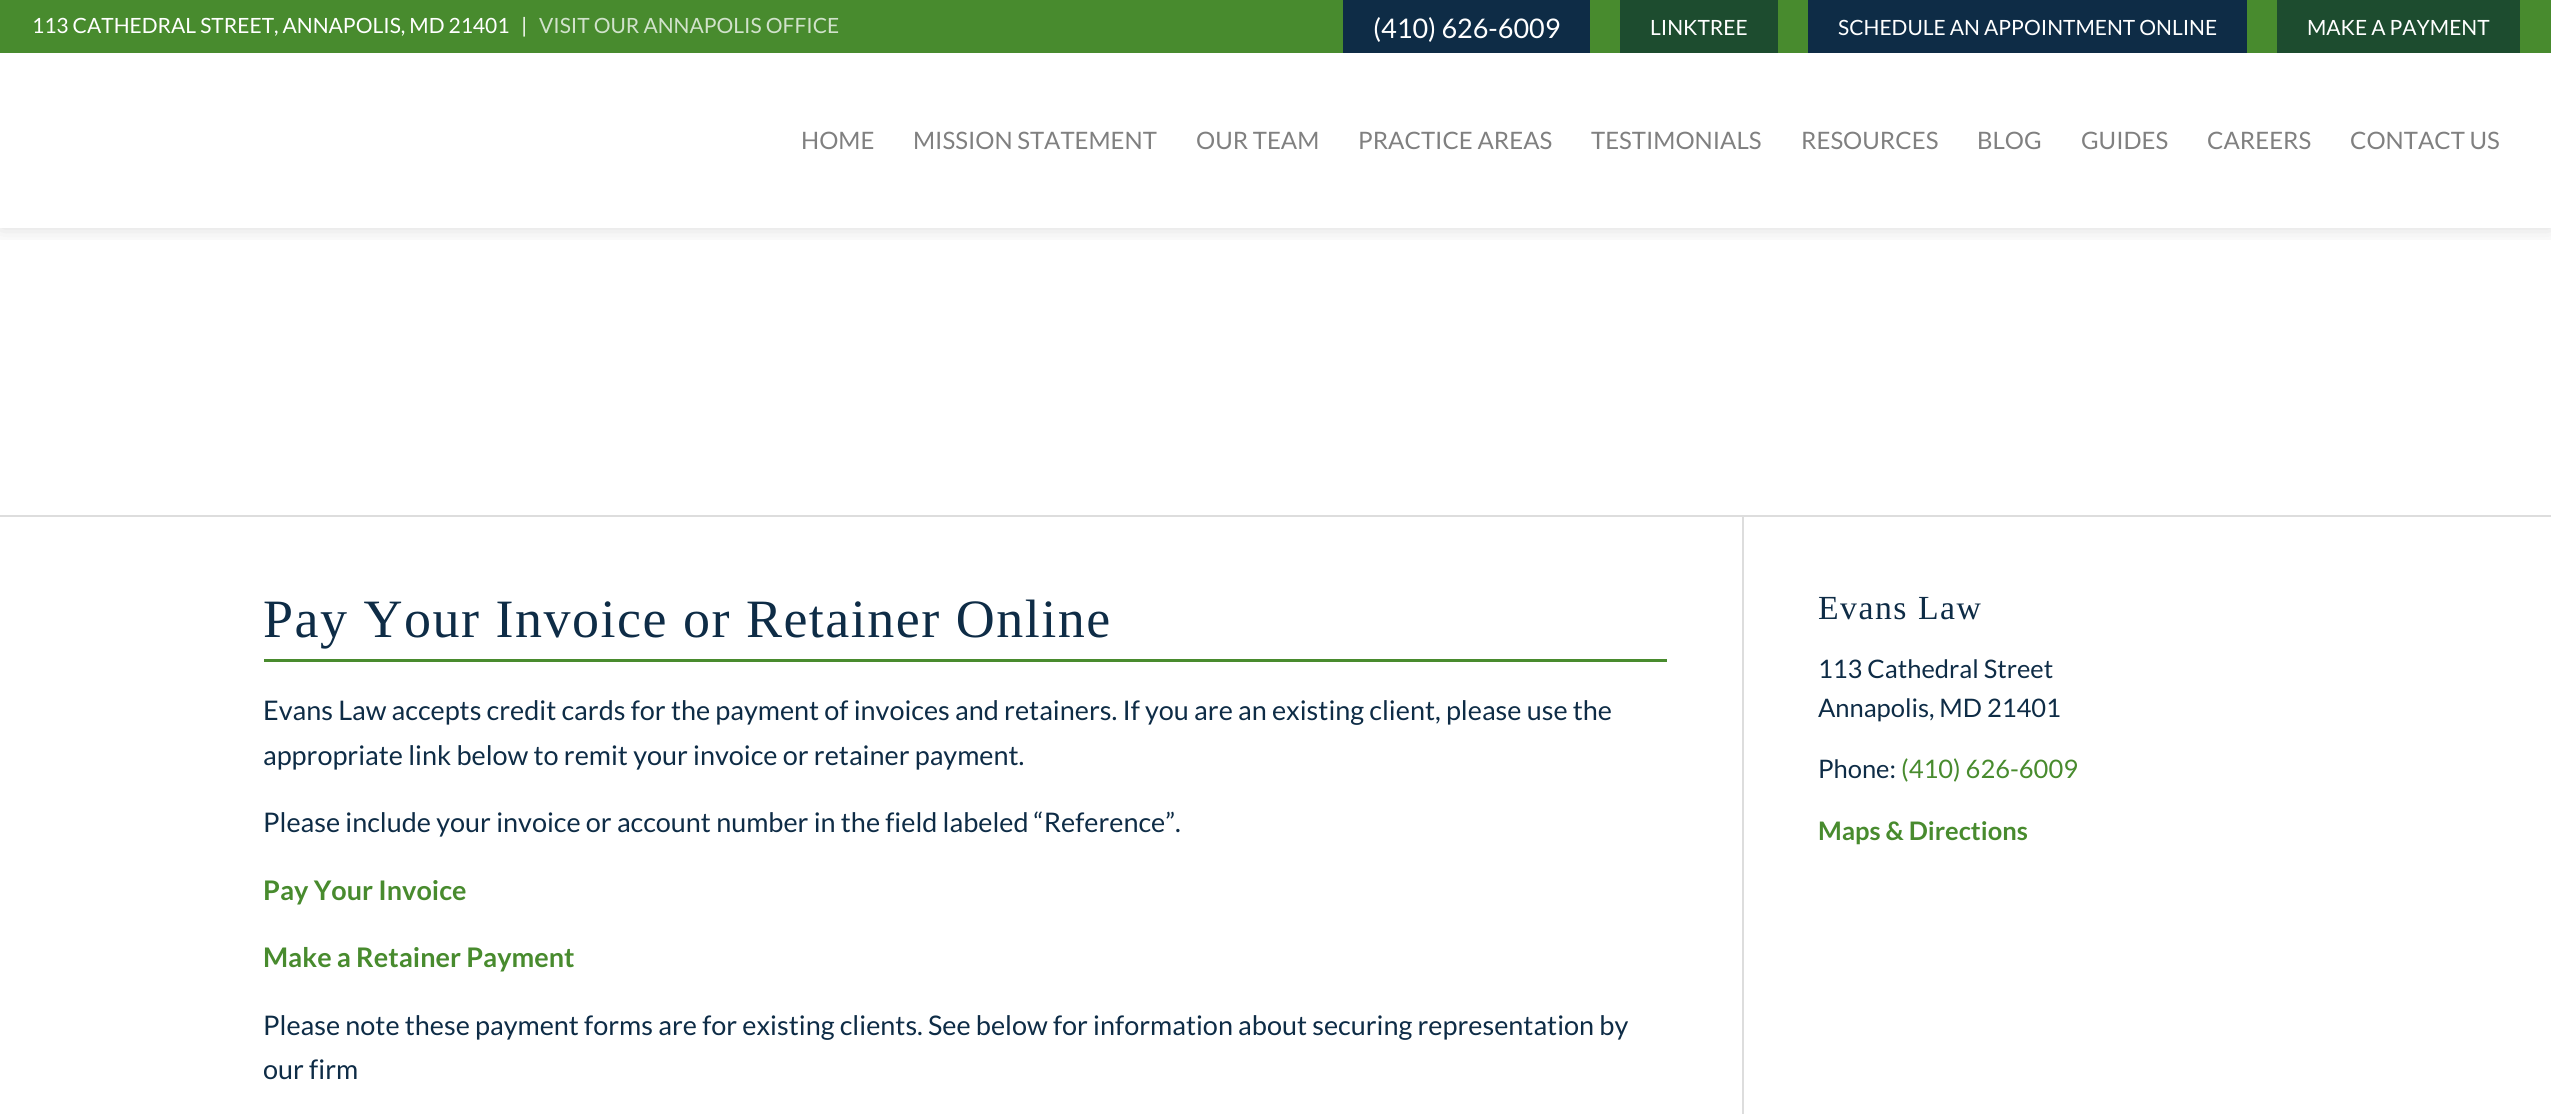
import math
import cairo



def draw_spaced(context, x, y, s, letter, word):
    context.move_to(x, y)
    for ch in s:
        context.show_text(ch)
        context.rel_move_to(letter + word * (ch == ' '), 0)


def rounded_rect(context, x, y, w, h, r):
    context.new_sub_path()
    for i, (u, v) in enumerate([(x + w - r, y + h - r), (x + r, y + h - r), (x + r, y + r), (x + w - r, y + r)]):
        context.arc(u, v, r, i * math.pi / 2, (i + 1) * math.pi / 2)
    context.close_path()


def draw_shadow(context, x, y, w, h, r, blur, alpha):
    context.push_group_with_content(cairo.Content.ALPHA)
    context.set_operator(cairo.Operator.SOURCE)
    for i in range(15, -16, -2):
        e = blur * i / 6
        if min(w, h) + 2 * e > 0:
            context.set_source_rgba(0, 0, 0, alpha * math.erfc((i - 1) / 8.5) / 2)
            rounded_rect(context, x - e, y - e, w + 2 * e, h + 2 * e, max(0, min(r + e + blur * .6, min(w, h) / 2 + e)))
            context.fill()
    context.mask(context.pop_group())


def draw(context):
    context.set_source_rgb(1, 1, 1)
    context.paint()
    context.save()
    context.rectangle(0, 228, 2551, 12)
    context.clip()
    context.set_source_rgb(0, 0, 0)
    draw_shadow(context, 0, 51, 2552, 177, 0, 11, 0.15)
    context.restore()
    context.set_source_rgb(72 / 255, 139 / 255, 46 / 255)
    context.rectangle(0, 0, 2551, 53)
    context.fill()
    context.set_source_rgb(14 / 255, 44 / 255, 70 / 255)
    context.rectangle(1343, 0, 247, 53)
    context.fill()
    context.set_source_rgb(29 / 255, 76 / 255, 47 / 255)
    context.rectangle(1620, 0, 158, 53)
    context.fill()
    context.set_source_rgb(14 / 255, 44 / 255, 70 / 255)
    context.rectangle(1808, 0, 439, 53)
    context.fill()
    context.set_source_rgb(29 / 255, 76 / 255, 47 / 255)
    context.rectangle(2277, 0, 243, 53)
    context.fill()
    context.set_source_rgb(221 / 255, 221 / 255, 221 / 255)
    context.rectangle(0, 515, 2551, 2)
    context.fill()
    context.rectangle(1742, 516, 2, 598)
    context.fill()
    context.set_source_rgb(73 / 255, 139 / 255, 46 / 255)
    context.rectangle(264, 659, 1403, 3)
    context.fill()
    context.select_font_face("Lato")
    context.set_font_size(21)
    context.set_source_rgb(1, 1, 1)
    context.move_to(32, 33)
    context.show_text("113 CATHEDRAL STREET, ANNAPOLIS, MD 21401")
    context.move_to(521, 33)
    context.show_text("|")
    context.set_source_rgb(209 / 255, 226 / 255, 203 / 255)
    context.move_to(539, 33)
    context.show_text("VISIT OUR ANNAPOLIS OFFICE")
    context.set_font_size(27)
    context.set_source_rgb(1, 1, 1)
    context.move_to(1373, 38)
    context.show_text("(410) 626-6009")
    context.set_font_size(21)
    context.move_to(1650, 35)
    context.show_text("LINKTREE")
    context.move_to(1838, 35)
    context.show_text("SCHEDULE AN APPOINTMENT ONLINE")
    context.move_to(2307, 35)
    context.show_text("MAKE A PAYMENT")
    context.set_font_size(24)
    context.set_source_rgb(128 / 255, 128 / 255, 128 / 255)
    context.move_to(801, 149)
    context.show_text("HOME")
    context.move_to(913, 149)
    context.show_text("MISSION STATEMENT")
    context.move_to(1196, 149)
    context.show_text("OUR TEAM")
    context.move_to(1358, 149)
    context.show_text("PRACTICE AREAS")
    context.move_to(1591, 149)
    context.show_text("TESTIMONIALS")
    context.move_to(1801, 149)
    context.show_text("RESOURCES")
    context.move_to(1977, 149)
    context.show_text("BLOG")
    context.move_to(2081, 149)
    context.show_text("GUIDES")
    context.move_to(2207, 149)
    context.show_text("CAREERS")
    context.move_to(2350, 149)
    context.show_text("CONTACT US")
    context.select_font_face("Liberation Serif")
    context.set_font_size(54)
    context.set_source_rgb(14 / 255, 44 / 255, 70 / 255)
    draw_spaced(context, 263, 637, "Pay Your Invoice or Retainer Online", 1.5, 0)
    context.select_font_face("Lato")
    context.set_font_size(27)
    context.move_to(263, 720)
    context.show_text("Evans Law accepts credit cards for the payment of invoices and retainers. If you are an existing client, please use the")
    context.move_to(263, 765)
    context.show_text("appropriate link below to remit your invoice or retainer payment.")
    context.move_to(263, 832)
    context.show_text("Please include your invoice or account number in the field labeled “Reference”.")
    context.select_font_face("Lato", cairo.FontSlant.NORMAL, cairo.FontWeight.BOLD)
    context.set_source_rgb(72 / 255, 139 / 255, 46 / 255)
    context.move_to(263, 900)
    context.show_text("Pay Your Invoice")
    context.move_to(263, 967)
    context.show_text("Make a Retainer Payment")
    context.select_font_face("Lato")
    context.set_source_rgb(14 / 255, 44 / 255, 70 / 255)
    context.move_to(263, 1035)
    context.show_text("Please note these payment forms are for existing clients. See below for information about securing representation by")
    context.move_to(263, 1079)
    context.show_text("our firm")
    context.select_font_face("Liberation Serif")
    context.set_font_size(33.75)
    draw_spaced(context, 1818, 619, "Evans Law", 1.5, 0)
    context.select_font_face("Lato")
    context.set_font_size(25.5)
    context.move_to(1818, 678)
    context.show_text("113 Cathedral Street")
    context.move_to(1818, 717)
    context.show_text("Annapolis, MD 21401")
    context.move_to(1818, 778)
    context.show_text("Phone:")
    context.set_source_rgb(72 / 255, 139 / 255, 46 / 255)
    context.move_to(1901, 778)
    context.show_text("(410) 626-6009")
    context.select_font_face("Lato", cairo.FontSlant.NORMAL, cairo.FontWeight.BOLD)
    context.move_to(1818, 840)
    context.show_text("Maps & Directions")


surface = cairo.ImageSurface(cairo.Format.RGB24, 2551, 1114)
context = cairo.Context(surface)
options = cairo.FontOptions()
options.set_hint_metrics(cairo.HintMetrics.OFF)
options.set_hint_style(cairo.HintStyle.NONE)
context.set_font_options(options)
context.set_miter_limit(4)
draw(context)
surface.write_to_png("out.png")
